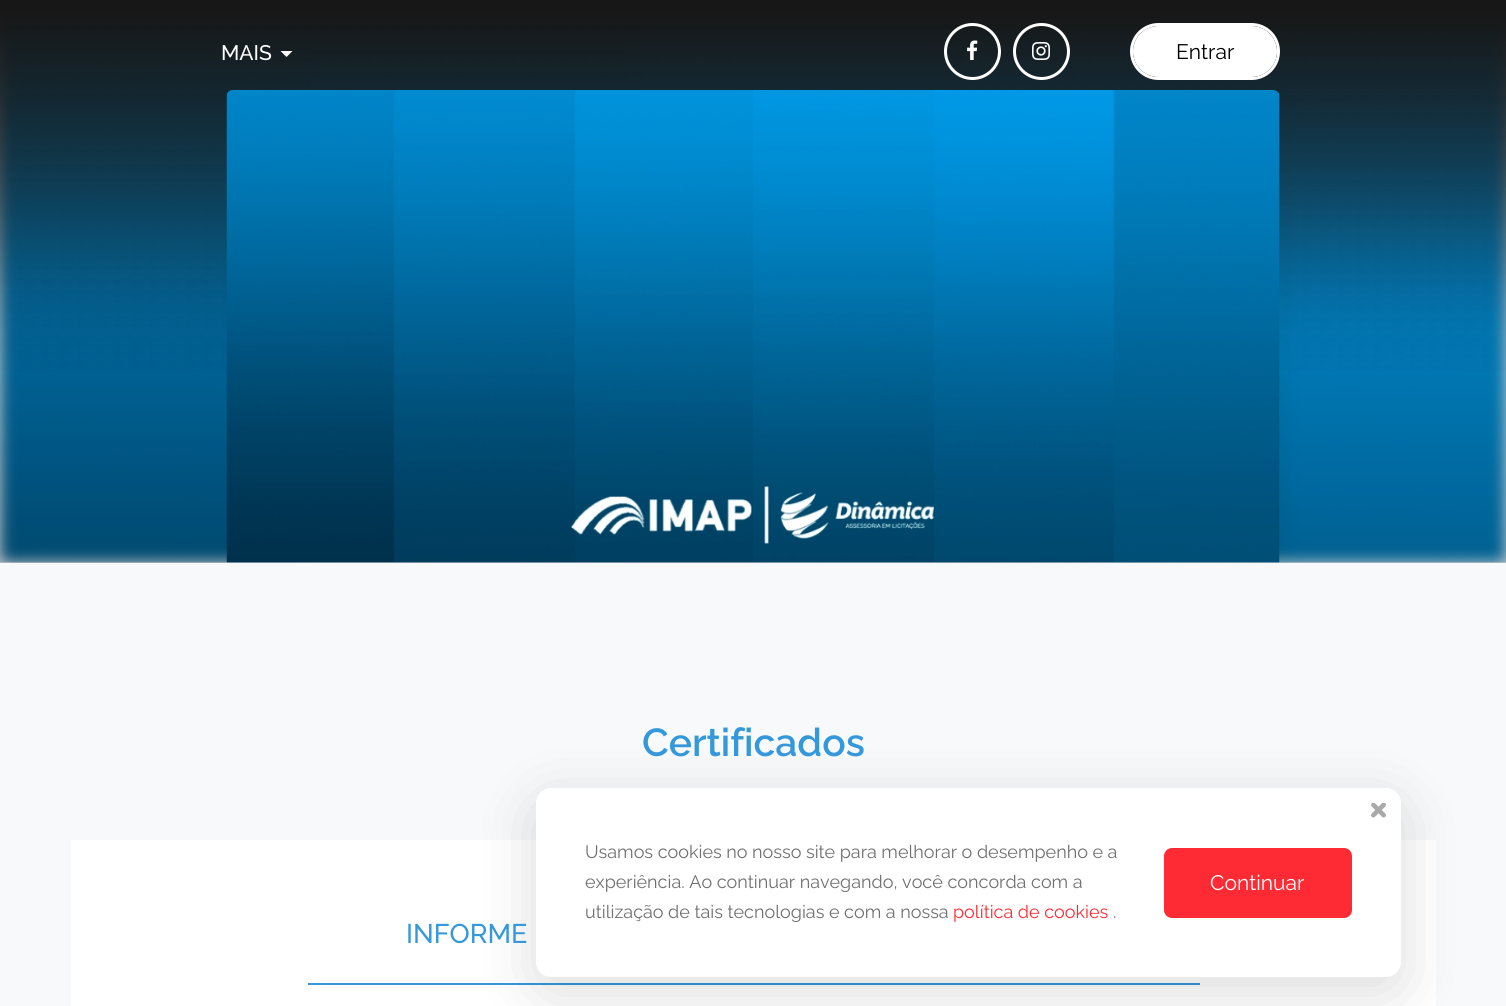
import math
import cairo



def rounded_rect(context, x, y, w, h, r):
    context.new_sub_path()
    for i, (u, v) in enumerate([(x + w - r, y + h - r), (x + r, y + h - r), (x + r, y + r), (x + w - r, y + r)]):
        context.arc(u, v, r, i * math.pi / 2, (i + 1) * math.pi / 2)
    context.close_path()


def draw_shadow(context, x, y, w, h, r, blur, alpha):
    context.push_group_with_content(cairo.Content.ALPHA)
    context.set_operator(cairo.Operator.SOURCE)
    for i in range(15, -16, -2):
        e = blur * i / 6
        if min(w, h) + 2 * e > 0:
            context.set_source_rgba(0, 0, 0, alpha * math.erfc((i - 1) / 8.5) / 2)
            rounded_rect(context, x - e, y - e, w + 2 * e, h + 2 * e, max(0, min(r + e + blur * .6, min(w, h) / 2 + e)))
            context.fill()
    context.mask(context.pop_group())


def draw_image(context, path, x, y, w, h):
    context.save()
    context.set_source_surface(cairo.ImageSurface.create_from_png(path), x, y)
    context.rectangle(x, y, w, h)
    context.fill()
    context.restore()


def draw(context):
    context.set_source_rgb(247 / 255, 249 / 255, 250 / 255)
    context.paint()
    context.set_source_rgb(204 / 255, 204 / 255, 204 / 255)
    context.rectangle(0, 17, 1506, 546)
    context.fill()
    draw_image(context, "images/2.png", 0, 17, 1506, 546)
    draw_image(context, "images/1.png", 0, 0, 1506, 371)
    draw_image(context, "images/3.png", 226, 90, 1054, 473)
    context.set_source_rgb(1, 1, 1)
    context.new_path()
    context.move_to(280.5, 51)
    context.line_to(292.5, 51)
    context.line_to(286.5, 57)
    context.close_path()
    context.fill()
    context.arc(972.5, 51.5, 27, 0, 2 * math.pi)
    context.set_line_width(3)
    context.stroke()
    draw_image(context, "images/4.png", 967, 40, 11, 20)
    context.arc(1041.5, 51.5, 27, 0, 2 * math.pi)
    context.stroke()
    draw_image(context, "images/5.png", 1032, 42, 18, 18)
    rounded_rect(context, 1131.5, 24.5, 147, 54, 27)
    context.stroke()
    rounded_rect(context, 1133, 26, 144, 51, 25.5)
    context.fill()
    context.rectangle(71, 840, 1365, 166)
    context.fill()
    context.set_source_rgb(52 / 255, 152 / 255, 219 / 255)
    context.rectangle(308, 983, 892, 2)
    context.fill()
    context.set_source_rgb(0, 0, 0)
    draw_shadow(context, 536, 803, 865, 189, 15, 30, 0.14)
    context.set_source_rgb(1, 1, 1)
    rounded_rect(context, 536, 788, 865, 189, 15)
    context.fill()
    draw_image(context, "images/6.png", 1371, 803, 15, 15)
    context.set_source_rgb(1, 43 / 255, 52 / 255)
    rounded_rect(context, 1164, 848, 188, 70, 8)
    context.fill()
    context.select_font_face("Raleway Medium")
    context.set_font_size(21)
    context.set_source_rgb(1, 1, 1)
    context.move_to(221, 60)
    context.show_text("MAIS")
    context.select_font_face("Raleway")
    context.set_source_rgb(0, 0, 0)
    context.move_to(1176, 59)
    context.show_text("Entrar")
    context.select_font_face("Raleway SemiBold")
    context.set_font_size(39)
    context.set_source_rgb(52 / 255, 152 / 255, 219 / 255)
    context.move_to(642, 756)
    context.show_text("Certificados")
    context.select_font_face("Raleway Medium")
    context.set_font_size(27)
    context.move_to(406, 943)
    context.show_text("INFORME")
    context.select_font_face("Raleway")
    context.set_font_size(18)
    context.set_source_rgb(112 / 255, 112 / 255, 112 / 255)
    context.move_to(585, 858)
    context.show_text("Usamos cookies no nosso site para melhorar o desempenho e a")
    context.move_to(585, 888)
    context.show_text("experiência. Ao continuar navegando, você concorda com a")
    context.move_to(585, 918)
    context.show_text("utilização de tais tecnologias e com a nossa")
    context.set_source_rgb(1, 43 / 255, 52 / 255)
    context.move_to(953, 918)
    context.show_text("política de cookies")
    context.set_source_rgb(112 / 255, 112 / 255, 112 / 255)
    context.move_to(1113, 918)
    context.show_text(".")
    context.set_font_size(21)
    context.set_source_rgb(1, 1, 1)
    context.move_to(1210, 890)
    context.show_text("Continuar")


surface = cairo.ImageSurface(cairo.Format.RGB24, 1506, 1006)
context = cairo.Context(surface)
options = cairo.FontOptions()
options.set_hint_metrics(cairo.HintMetrics.OFF)
options.set_hint_style(cairo.HintStyle.NONE)
context.set_font_options(options)
context.set_miter_limit(4)
draw(context)
surface.write_to_png("out.png")
